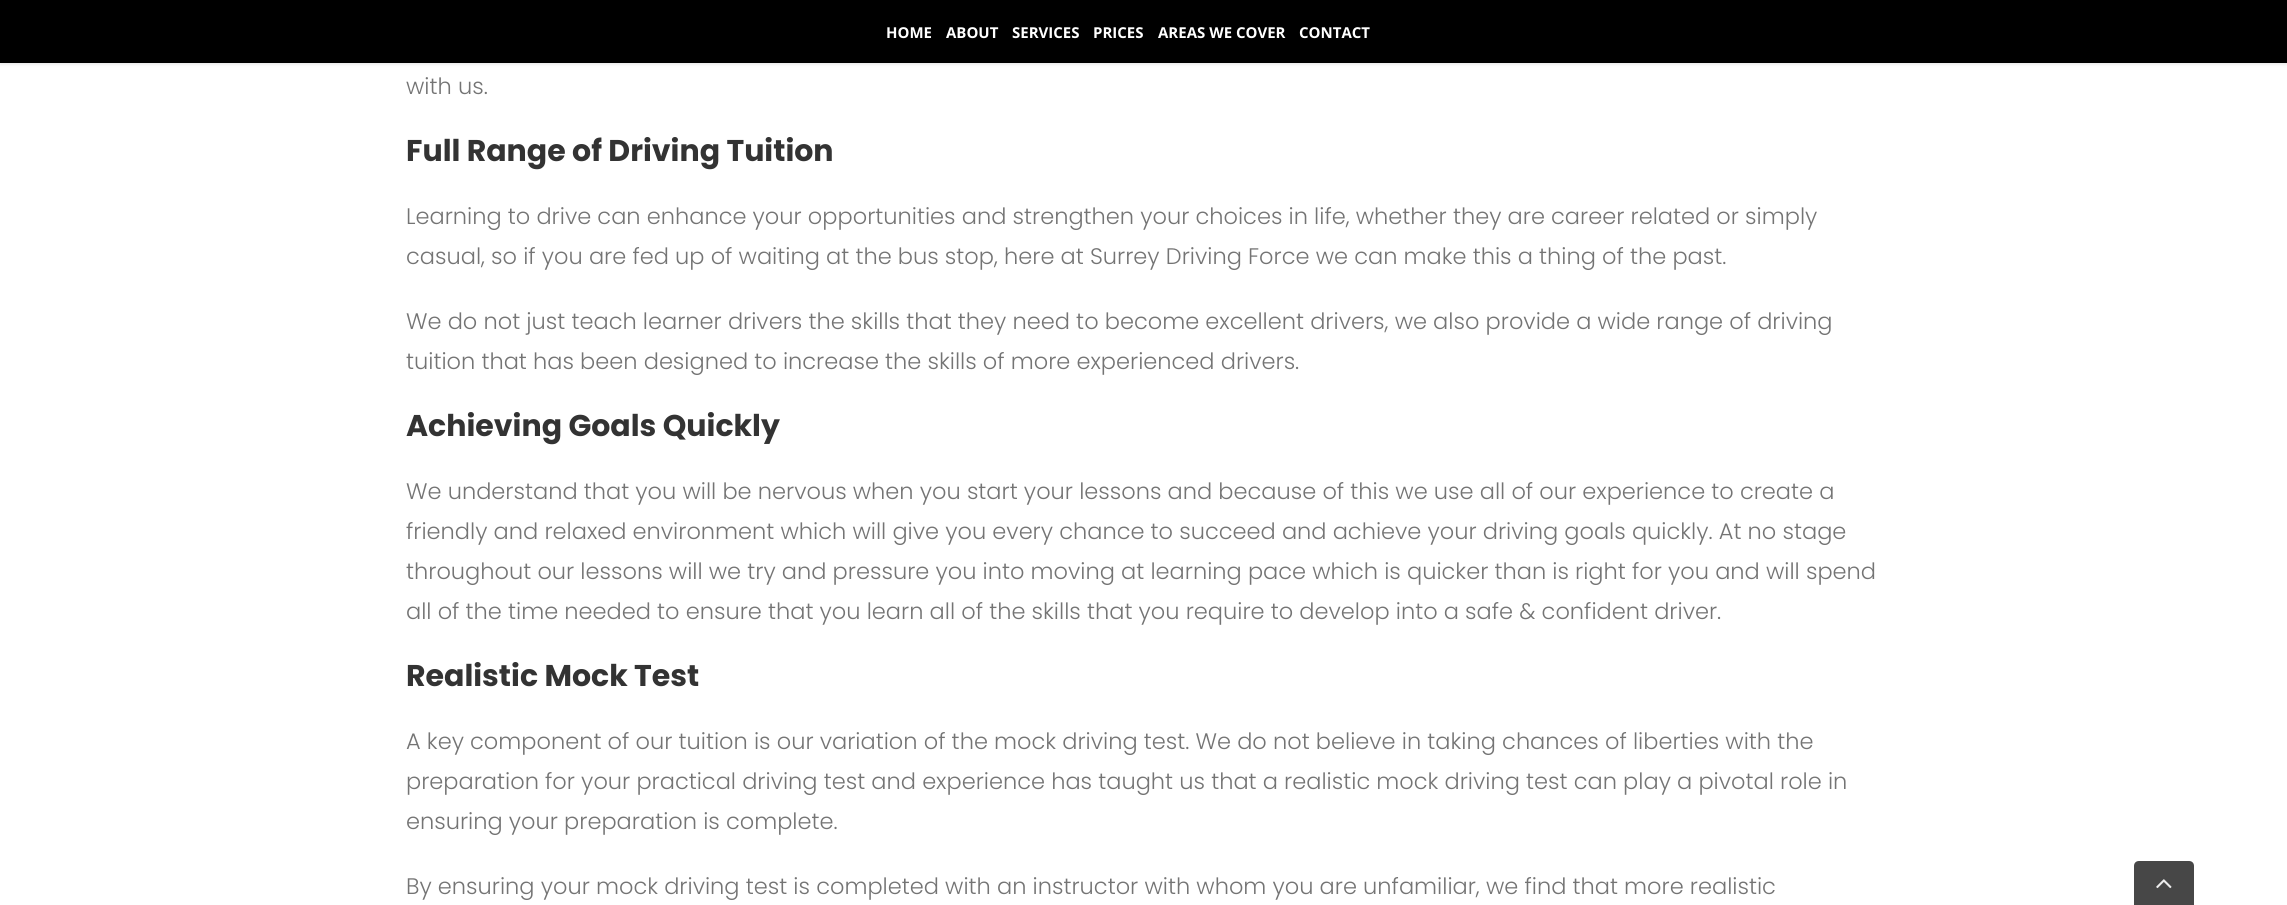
import math
import cairo



def rounded_rect(context, x, y, w, h, r):
    context.new_sub_path()
    for i, (u, v) in enumerate([(x + w - r, y + h - r), (x + r, y + h - r), (x + r, y + r), (x + w - r, y + r)]):
        context.arc(u, v, r, i * math.pi / 2, (i + 1) * math.pi / 2)
    context.close_path()


def draw_shadow(context, x, y, w, h, r, blur, alpha):
    context.push_group_with_content(cairo.Content.ALPHA)
    context.set_operator(cairo.Operator.SOURCE)
    for i in range(15, -16, -2):
        e = blur * i / 6
        if min(w, h) + 2 * e > 0:
            context.set_source_rgba(0, 0, 0, alpha * math.erfc((i - 1) / 8.5) / 2)
            rounded_rect(context, x - e, y - e, w + 2 * e, h + 2 * e, max(0, min(r + e + blur * .6, min(w, h) / 2 + e)))
            context.fill()
    context.mask(context.pop_group())


def draw_image(context, path, x, y, w, h):
    context.save()
    context.set_source_surface(cairo.ImageSurface.create_from_png(path), x, y)
    context.rectangle(x, y, w, h)
    context.fill()
    context.restore()


def draw(context):
    context.set_source_rgb(1, 1, 1)
    context.paint()
    context.set_source_rgb(0, 0, 0)
    draw_shadow(context, 0, 1, 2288, 63, 0, 2, 0.12)
    context.set_source_rgb(0, 0, 0)
    context.rectangle(0, 0, 2287, 63)
    context.fill()
    context.set_source_rgb(71 / 255, 71 / 255, 71 / 255)
    context.new_path()
    context.move_to(2139, 861)
    context.line_to(2189, 861)
    context.curve_to(2192, 861, 2194, 863, 2194, 866)
    context.line_to(2194, 905)
    context.line_to(2134, 905)
    context.line_to(2134, 866)
    context.curve_to(2134, 863, 2136, 861, 2139, 861)
    context.close_path()
    context.fill()
    draw_image(context, "images/1.png", 2156, 879, 16, 10)
    context.select_font_face("Open Sans", cairo.FontSlant.NORMAL, cairo.FontWeight.BOLD)
    context.set_font_size(15)
    context.set_source_rgb(1, 1, 1)
    context.move_to(886, 38)
    context.show_text("HOME")
    context.move_to(946, 38)
    context.show_text("ABOUT")
    context.move_to(1012, 38)
    context.show_text("SERVICES")
    context.move_to(1093, 38)
    context.show_text("PRICES")
    context.move_to(1158, 38)
    context.show_text("AREAS WE COVER")
    context.move_to(1299, 38)
    context.show_text("CONTACT")
    context.select_font_face("Poppins Light")
    context.set_font_size(22.5)
    context.set_source_rgb(116 / 255, 116 / 255, 116 / 255)
    context.move_to(406, 94)
    context.show_text("with us.")
    context.select_font_face("Poppins", cairo.FontSlant.NORMAL, cairo.FontWeight.BOLD)
    context.set_font_size(30)
    context.set_source_rgb(51 / 255, 51 / 255, 51 / 255)
    context.move_to(406, 161)
    context.show_text("Full Range of Driving Tuition")
    context.select_font_face("Poppins Light")
    context.set_font_size(22.5)
    context.set_source_rgb(116 / 255, 116 / 255, 116 / 255)
    context.move_to(406, 224)
    context.show_text("Learning to drive can enhance your opportunities and strengthen your choices in life, whether they are career related or simply")
    context.move_to(406, 264)
    context.show_text("casual, so if you are fed up of waiting at the bus stop, here at Surrey Driving Force we can make this a thing of the past.")
    context.move_to(406, 329)
    context.show_text("We do not just teach learner drivers the skills that they need to become excellent drivers, we also provide a wide range of driving")
    context.move_to(406, 369)
    context.show_text("tuition that has been designed to increase the skills of more experienced drivers.")
    context.select_font_face("Poppins", cairo.FontSlant.NORMAL, cairo.FontWeight.BOLD)
    context.set_font_size(30)
    context.set_source_rgb(51 / 255, 51 / 255, 51 / 255)
    context.move_to(406, 436)
    context.show_text("Achieving Goals Quickly")
    context.select_font_face("Poppins Light")
    context.set_font_size(22.5)
    context.set_source_rgb(116 / 255, 116 / 255, 116 / 255)
    context.move_to(406, 499)
    context.show_text("We understand that you will be nervous when you start your lessons and because of this we use all of our experience to create a")
    context.move_to(406, 539)
    context.show_text("friendly and relaxed environment which will give you every chance to succeed and achieve your driving goals quickly. At no stage")
    context.move_to(406, 579)
    context.show_text("throughout our lessons will we try and pressure you into moving at learning pace which is quicker than is right for you and will spend")
    context.move_to(406, 619)
    context.show_text("all of the time needed to ensure that you learn all of the skills that you require to develop into a safe & confident driver.")
    context.select_font_face("Poppins", cairo.FontSlant.NORMAL, cairo.FontWeight.BOLD)
    context.set_font_size(30)
    context.set_source_rgb(51 / 255, 51 / 255, 51 / 255)
    context.move_to(406, 686)
    context.show_text("Realistic Mock Test")
    context.select_font_face("Poppins Light")
    context.set_font_size(22.5)
    context.set_source_rgb(116 / 255, 116 / 255, 116 / 255)
    context.move_to(406, 749)
    context.show_text("A key component of our tuition is our variation of the mock driving test. We do not believe in taking chances of liberties with the")
    context.move_to(406, 789)
    context.show_text("preparation for your practical driving test and experience has taught us that a realistic mock driving test can play a pivotal role in")
    context.move_to(406, 829)
    context.show_text("ensuring your preparation is complete.")
    context.move_to(406, 894)
    context.show_text("By ensuring your mock driving test is completed with an instructor with whom you are unfamiliar, we find that more realistic")


surface = cairo.ImageSurface(cairo.Format.RGB24, 2287, 905)
context = cairo.Context(surface)
options = cairo.FontOptions()
options.set_hint_metrics(cairo.HintMetrics.OFF)
options.set_hint_style(cairo.HintStyle.NONE)
context.set_font_options(options)
context.set_miter_limit(4)
draw(context)
surface.write_to_png("out.png")
